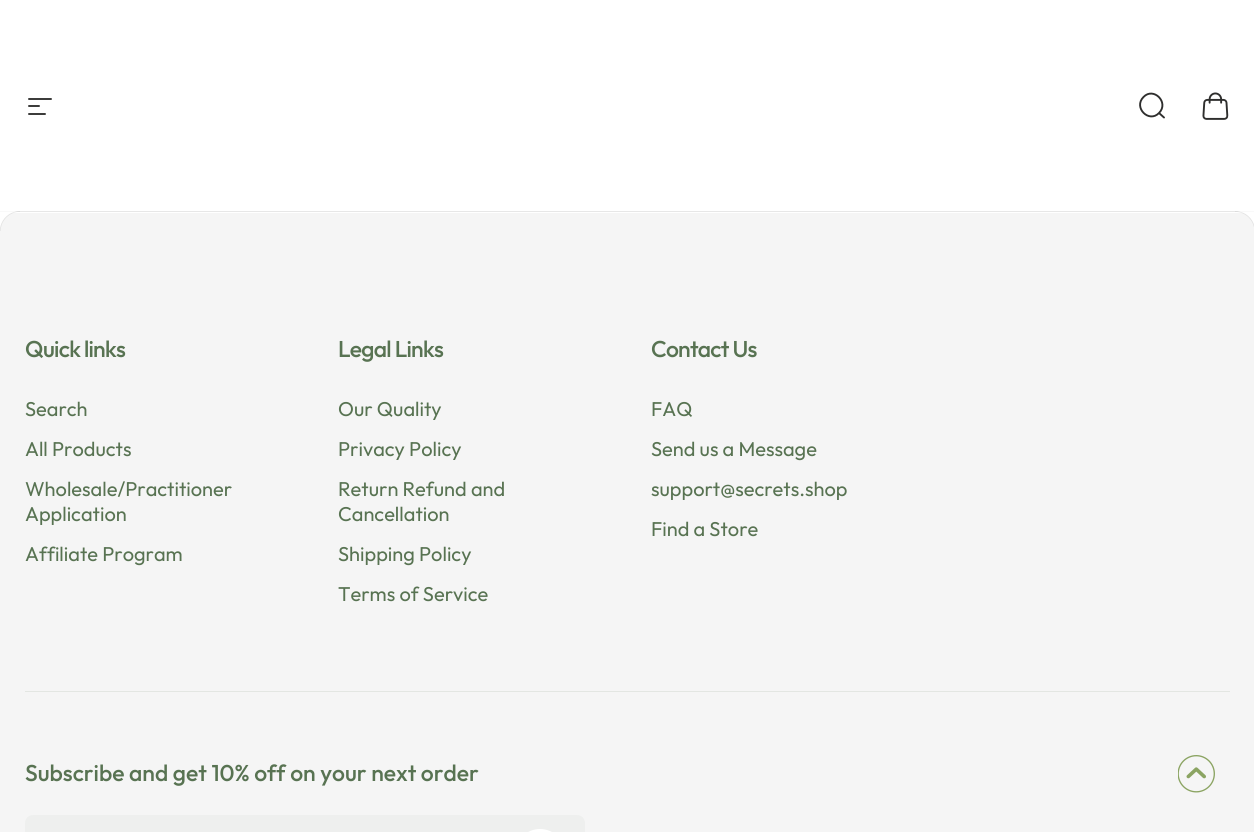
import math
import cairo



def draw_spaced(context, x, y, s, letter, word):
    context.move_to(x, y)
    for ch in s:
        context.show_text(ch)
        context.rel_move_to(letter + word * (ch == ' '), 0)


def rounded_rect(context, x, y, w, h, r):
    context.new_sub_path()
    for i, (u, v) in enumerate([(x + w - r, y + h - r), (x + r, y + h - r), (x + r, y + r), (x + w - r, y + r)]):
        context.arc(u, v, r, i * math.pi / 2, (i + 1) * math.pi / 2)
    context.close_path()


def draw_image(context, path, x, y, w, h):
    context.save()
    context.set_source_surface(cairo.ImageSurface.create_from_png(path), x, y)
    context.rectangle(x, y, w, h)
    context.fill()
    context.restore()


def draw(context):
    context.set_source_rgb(245 / 255, 245 / 255, 245 / 255)
    context.paint()
    context.set_source_rgb(1, 1, 1)
    context.rectangle(0, 0, 1254, 211)
    context.fill()
    context.new_path()
    context.move_to(29, 99)
    context.line_to(51, 99)
    context.move_to(29, 106)
    context.line_to(39, 106)
    context.move_to(29, 114)
    context.line_to(45, 114)
    context.set_source_rgb(46 / 255, 46 / 255, 45 / 255)
    context.set_line_width(1.9)
    context.set_line_cap(cairo.LineCap.ROUND)
    context.stroke()
    context.new_path()
    context.move_to(1164, 117.5)
    context.line_to(1159, 113)
    context.move_to(1159, 113)
    context.curve_to(1169.5, 102.5, 1153.5, 86.5, 1143.5, 97)
    context.curve_to(1133, 107.5, 1149, 123.5, 1159, 113)
    context.close_path()
    context.stroke()
    draw_image(context, "images/1.png", 1202, 92, 27, 28)
    context.set_source_rgb(231 / 255, 231 / 255, 231 / 255)
    context.rectangle(0, 211, 1254, 1)
    context.fill()
    context.set_source_rgb(1, 1, 1)
    context.rectangle(12, 212, 1231, 1)
    context.fill()
    draw_image(context, "images/2.png", 0, 211, 20, 20)
    draw_image(context, "images/3.png", 1235, 211, 19, 16)
    context.set_source_rgb(227 / 255, 230 / 255, 226 / 255)
    context.rectangle(25, 691, 1205, 1)
    context.fill()
    context.set_source_rgb(238 / 255, 239 / 255, 238 / 255)
    rounded_rect(context, 25, 815, 560, 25, 8)
    context.fill()
    rounded_rect(context, 516.5, 830.5, 47, 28, 23.5)
    context.set_source_rgb(1, 1, 1)
    context.set_line_width(3)
    context.set_line_cap(cairo.LineCap.BUTT)
    context.stroke()
    draw_image(context, "images/4.png", 1178, 755, 37, 38)
    context.select_font_face("Outfit Medium")
    context.set_font_size(22.9)
    context.set_source_rgb(88 / 255, 115 / 255, 82 / 255)
    draw_spaced(context, 25, 357, "Quick links", -0.75, 0)
    context.select_font_face("Outfit")
    context.set_font_size(20)
    context.move_to(25, 416)
    context.show_text("Search")
    context.move_to(25, 456)
    context.show_text("All Products")
    context.move_to(25, 496)
    context.show_text("Wholesale/Practitioner")
    context.move_to(25, 521)
    context.show_text("Application")
    context.move_to(25, 561)
    context.show_text("Affiliate Program")
    context.select_font_face("Outfit Medium")
    context.set_font_size(22.9)
    draw_spaced(context, 338, 357, "Legal Links", -0.75, 0)
    context.select_font_face("Outfit")
    context.set_font_size(20)
    context.move_to(338, 416)
    context.show_text("Our Quality")
    context.move_to(338, 456)
    context.show_text("Privacy Policy")
    context.move_to(338, 496)
    context.show_text("Return Refund and")
    context.move_to(338, 521)
    context.show_text("Cancellation")
    context.move_to(338, 561)
    context.show_text("Shipping Policy")
    context.move_to(338, 601)
    context.show_text("Terms of Service")
    context.select_font_face("Outfit Medium")
    context.set_font_size(22.9)
    draw_spaced(context, 651, 357, "Contact Us", -0.75, 0)
    context.select_font_face("Outfit")
    context.set_font_size(20)
    context.move_to(651, 416)
    context.show_text("FAQ")
    context.move_to(651, 456)
    context.show_text("Send us a Message")
    context.move_to(651, 496)
    context.show_text("support@secrets.shop")
    context.move_to(651, 536)
    context.show_text("Find a Store")
    context.select_font_face("Outfit Medium")
    context.set_font_size(22.9)
    context.move_to(25, 781)
    context.show_text("Subscribe and get 10% off on your next order")


surface = cairo.ImageSurface(cairo.Format.RGB24, 1254, 832)
context = cairo.Context(surface)
options = cairo.FontOptions()
options.set_hint_metrics(cairo.HintMetrics.OFF)
options.set_hint_style(cairo.HintStyle.NONE)
context.set_font_options(options)
context.set_miter_limit(4)
draw(context)
surface.write_to_png("out.png")
